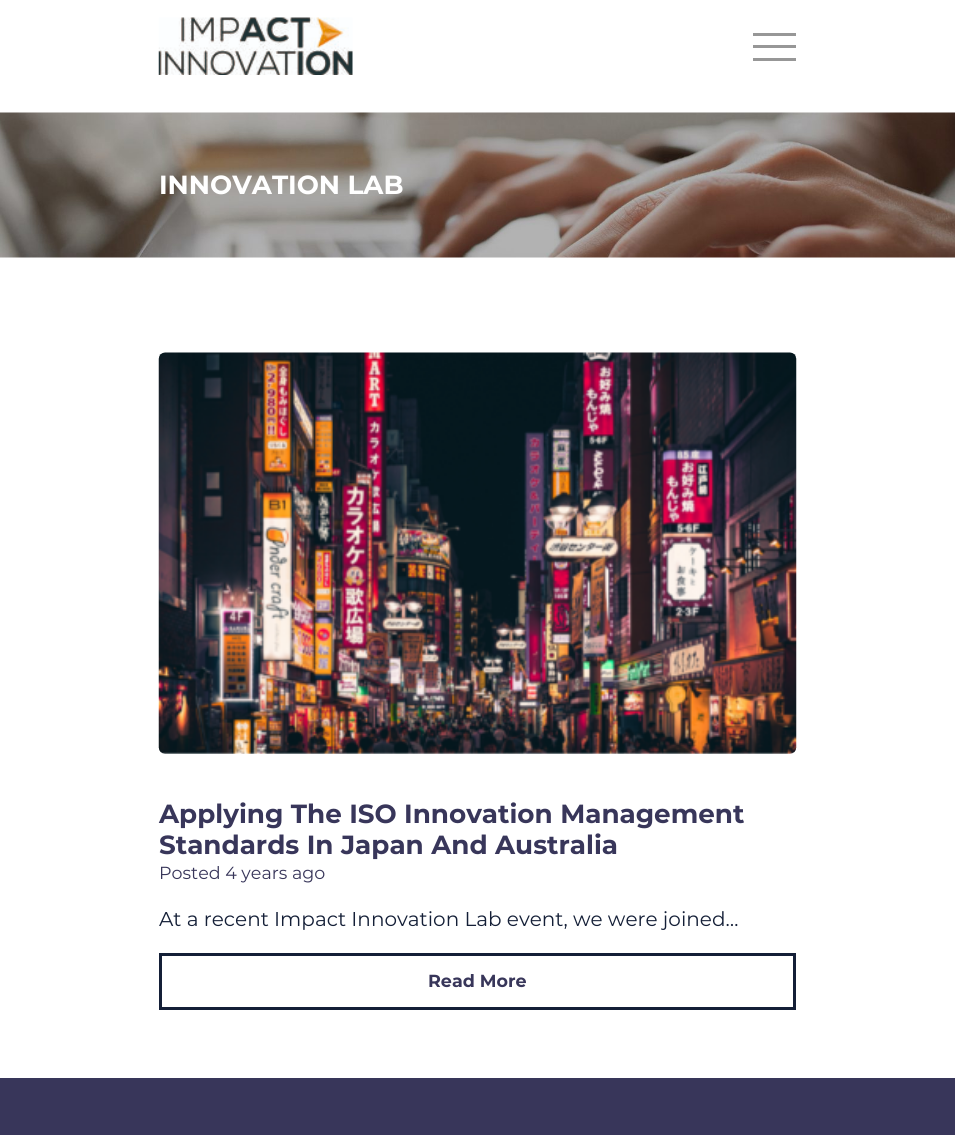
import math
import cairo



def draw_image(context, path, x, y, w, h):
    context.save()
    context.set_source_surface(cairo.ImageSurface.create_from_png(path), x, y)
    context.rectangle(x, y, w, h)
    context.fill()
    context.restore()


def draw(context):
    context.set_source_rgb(1, 1, 1)
    context.paint()
    draw_image(context, "images/1.png", 158, 17, 195, 58)
    context.set_source_rgb(151 / 255, 151 / 255, 151 / 255)
    context.rectangle(753, 45, 43, 3)
    context.fill()
    context.rectangle(753, 33, 43, 3)
    context.fill()
    context.rectangle(753, 58, 43, 3)
    context.fill()
    draw_image(context, "images/2.png", 0, 112, 955, 146)
    draw_image(context, "images/3.png", 158, 352, 639, 402)
    context.rectangle(160.5, 954.5, 634, 54)
    context.set_source_rgb(20 / 255, 31 / 255, 55 / 255)
    context.set_line_width(3)
    context.stroke()
    context.set_source_rgb(56 / 255, 54 / 255, 90 / 255)
    context.rectangle(0, 1078, 955, 57)
    context.fill()
    context.select_font_face("Montserrat", cairo.FontSlant.NORMAL, cairo.FontWeight.BOLD)
    context.set_font_size(26.25)
    context.set_source_rgb(1, 1, 1)
    context.move_to(159, 194)
    context.show_text("INNOVATION LAB")
    context.set_source_rgb(56 / 255, 54 / 255, 90 / 255)
    context.move_to(159, 823)
    context.show_text("Applying The ISO Innovation Management")
    context.move_to(159, 854)
    context.show_text("Standards In Japan And Australia")
    context.select_font_face("Montserrat")
    context.set_font_size(17.5)
    context.move_to(159, 879)
    context.show_text("Posted 4 years ago")
    context.set_font_size(20)
    context.set_source_rgb(20 / 255, 31 / 255, 55 / 255)
    context.move_to(159, 926)
    context.show_text("At a recent Impact Innovation Lab event, we were joined…")
    context.select_font_face("Montserrat", cairo.FontSlant.NORMAL, cairo.FontWeight.BOLD)
    context.set_font_size(17.5)
    context.set_source_rgb(56 / 255, 54 / 255, 90 / 255)
    context.move_to(428, 987)
    context.show_text("Read More")


surface = cairo.ImageSurface(cairo.Format.RGB24, 955, 1135)
context = cairo.Context(surface)
options = cairo.FontOptions()
options.set_hint_metrics(cairo.HintMetrics.OFF)
options.set_hint_style(cairo.HintStyle.NONE)
context.set_font_options(options)
context.set_miter_limit(4)
draw(context)
surface.write_to_png("out.png")
